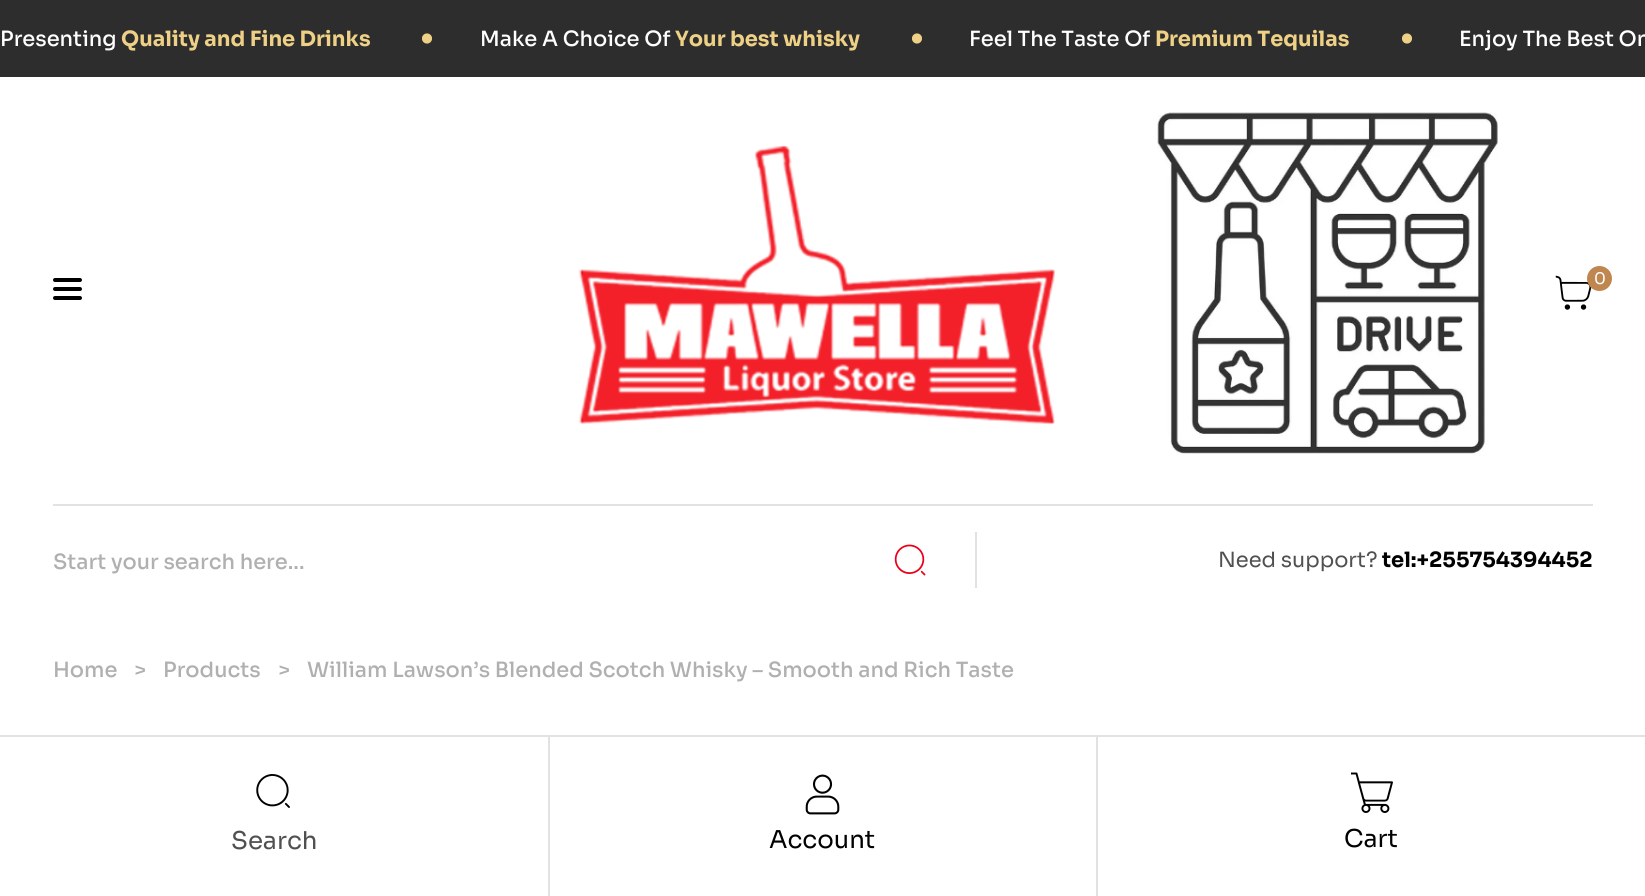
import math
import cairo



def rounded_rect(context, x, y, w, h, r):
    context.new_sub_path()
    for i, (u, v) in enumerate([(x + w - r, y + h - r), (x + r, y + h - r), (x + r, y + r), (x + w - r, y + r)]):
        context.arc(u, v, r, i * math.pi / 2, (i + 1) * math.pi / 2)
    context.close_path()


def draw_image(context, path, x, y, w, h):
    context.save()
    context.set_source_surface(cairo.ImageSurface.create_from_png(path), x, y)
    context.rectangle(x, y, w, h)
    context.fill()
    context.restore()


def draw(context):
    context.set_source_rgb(1, 1, 1)
    context.paint()
    context.set_source_rgb(45 / 255, 45 / 255, 45 / 255)
    context.rectangle(0, 0, 1645, 77)
    context.fill()
    draw_image(context, "images/1.png", 422, 33, 10, 11)
    draw_image(context, "images/1.png", 912, 33, 10, 11)
    draw_image(context, "images/1.png", 1402, 33, 10, 11)
    context.set_source_rgb(226 / 255, 226 / 255, 226 / 255)
    context.rectangle(53, 504, 1540, 2)
    context.fill()
    context.set_source_rgb(0, 0, 0)
    rounded_rect(context, 53, 278, 29, 4, 2)
    context.fill()
    rounded_rect(context, 53, 287, 29, 4, 2)
    context.fill()
    rounded_rect(context, 53, 296, 29, 4, 2)
    context.fill()
    draw_image(context, "images/2.png", 578, 146, 477, 278)
    draw_image(context, "images/3.png", 1157, 112, 341, 342)
    draw_image(context, "images/4.png", 1555, 275, 37, 35)
    context.set_source_rgb(191 / 255, 134 / 255, 79 / 255)
    context.arc(1599.5, 278.5, 12.5, 0, 2 * math.pi)
    context.fill()
    context.set_source_rgb(226 / 255, 226 / 255, 226 / 255)
    context.rectangle(975, 532, 2, 56)
    context.fill()
    draw_image(context, "images/5.png", 894, 544, 32, 32)
    context.rectangle(0, 735, 1645, 2)
    context.fill()
    draw_image(context, "images/6.png", 256, 774, 34, 34)
    context.rectangle(1096, 737, 2, 159)
    context.fill()
    context.rectangle(548, 737, 2, 159)
    context.fill()
    draw_image(context, "images/7.png", 805, 774, 35, 41)
    draw_image(context, "images/8.png", 1351, 772, 42, 41)
    context.select_font_face("Sora Medium")
    context.set_font_size(21)
    context.set_source_rgb(1, 1, 1)
    context.move_to(0, 46)
    context.show_text("Presenting")
    context.select_font_face("Sora", cairo.FontSlant.NORMAL, cairo.FontWeight.BOLD)
    context.set_source_rgb(238 / 255, 209 / 255, 134 / 255)
    context.move_to(121, 46)
    context.show_text("Quality and Fine Drinks")
    context.select_font_face("Sora Medium")
    context.set_source_rgb(1, 1, 1)
    context.move_to(480, 46)
    context.show_text("Make A Choice Of")
    context.select_font_face("Sora", cairo.FontSlant.NORMAL, cairo.FontWeight.BOLD)
    context.set_source_rgb(238 / 255, 209 / 255, 134 / 255)
    context.move_to(675, 46)
    context.show_text("Your best whisky")
    context.select_font_face("Sora Medium")
    context.set_source_rgb(1, 1, 1)
    context.move_to(969, 46)
    context.show_text("Feel The Taste Of")
    context.select_font_face("Sora", cairo.FontSlant.NORMAL, cairo.FontWeight.BOLD)
    context.set_source_rgb(238 / 255, 209 / 255, 134 / 255)
    context.move_to(1155, 46)
    context.show_text("Premium Tequilas")
    context.select_font_face("Sora Medium")
    context.set_source_rgb(1, 1, 1)
    context.move_to(1459, 46)
    context.show_text("Enjoy The Best On")
    context.select_font_face("Sora")
    context.set_font_size(16)
    context.move_to(1594, 284)
    context.show_text("0")
    context.select_font_face("Sora Medium")
    context.set_font_size(21)
    context.set_source_rgb(176 / 255, 176 / 255, 176 / 255)
    context.move_to(53, 569)
    context.show_text("Start your search here...")
    context.select_font_face("Sora")
    context.set_source_rgb(80 / 255, 80 / 255, 80 / 255)
    context.move_to(1218, 567)
    context.show_text("Need support?")
    context.select_font_face("Sora", cairo.FontSlant.NORMAL, cairo.FontWeight.BOLD)
    context.set_source_rgb(0, 0, 0)
    context.move_to(1382, 567)
    context.show_text("tel:+255754394452")
    context.select_font_face("Sora Medium")
    context.set_source_rgb(176 / 255, 176 / 255, 176 / 255)
    context.move_to(53, 677)
    context.show_text("Home")
    context.move_to(134, 677)
    context.show_text(">")
    context.move_to(163, 677)
    context.show_text("Products")
    context.move_to(278, 677)
    context.show_text(">")
    context.move_to(307, 677)
    context.show_text("William Lawson’s Blended Scotch Whisky – Smooth and Rich Taste")
    context.select_font_face("Sora")
    context.set_font_size(24.5)
    context.set_source_rgb(80 / 255, 80 / 255, 80 / 255)
    context.move_to(231, 849)
    context.show_text("Search")
    context.set_source_rgb(0, 0, 0)
    context.move_to(769, 848)
    context.show_text("Account")
    context.move_to(1344, 847)
    context.show_text("Cart")


surface = cairo.ImageSurface(cairo.Format.RGB24, 1645, 896)
context = cairo.Context(surface)
options = cairo.FontOptions()
options.set_hint_metrics(cairo.HintMetrics.OFF)
options.set_hint_style(cairo.HintStyle.NONE)
context.set_font_options(options)
context.set_miter_limit(4)
draw(context)
surface.write_to_png("out.png")
